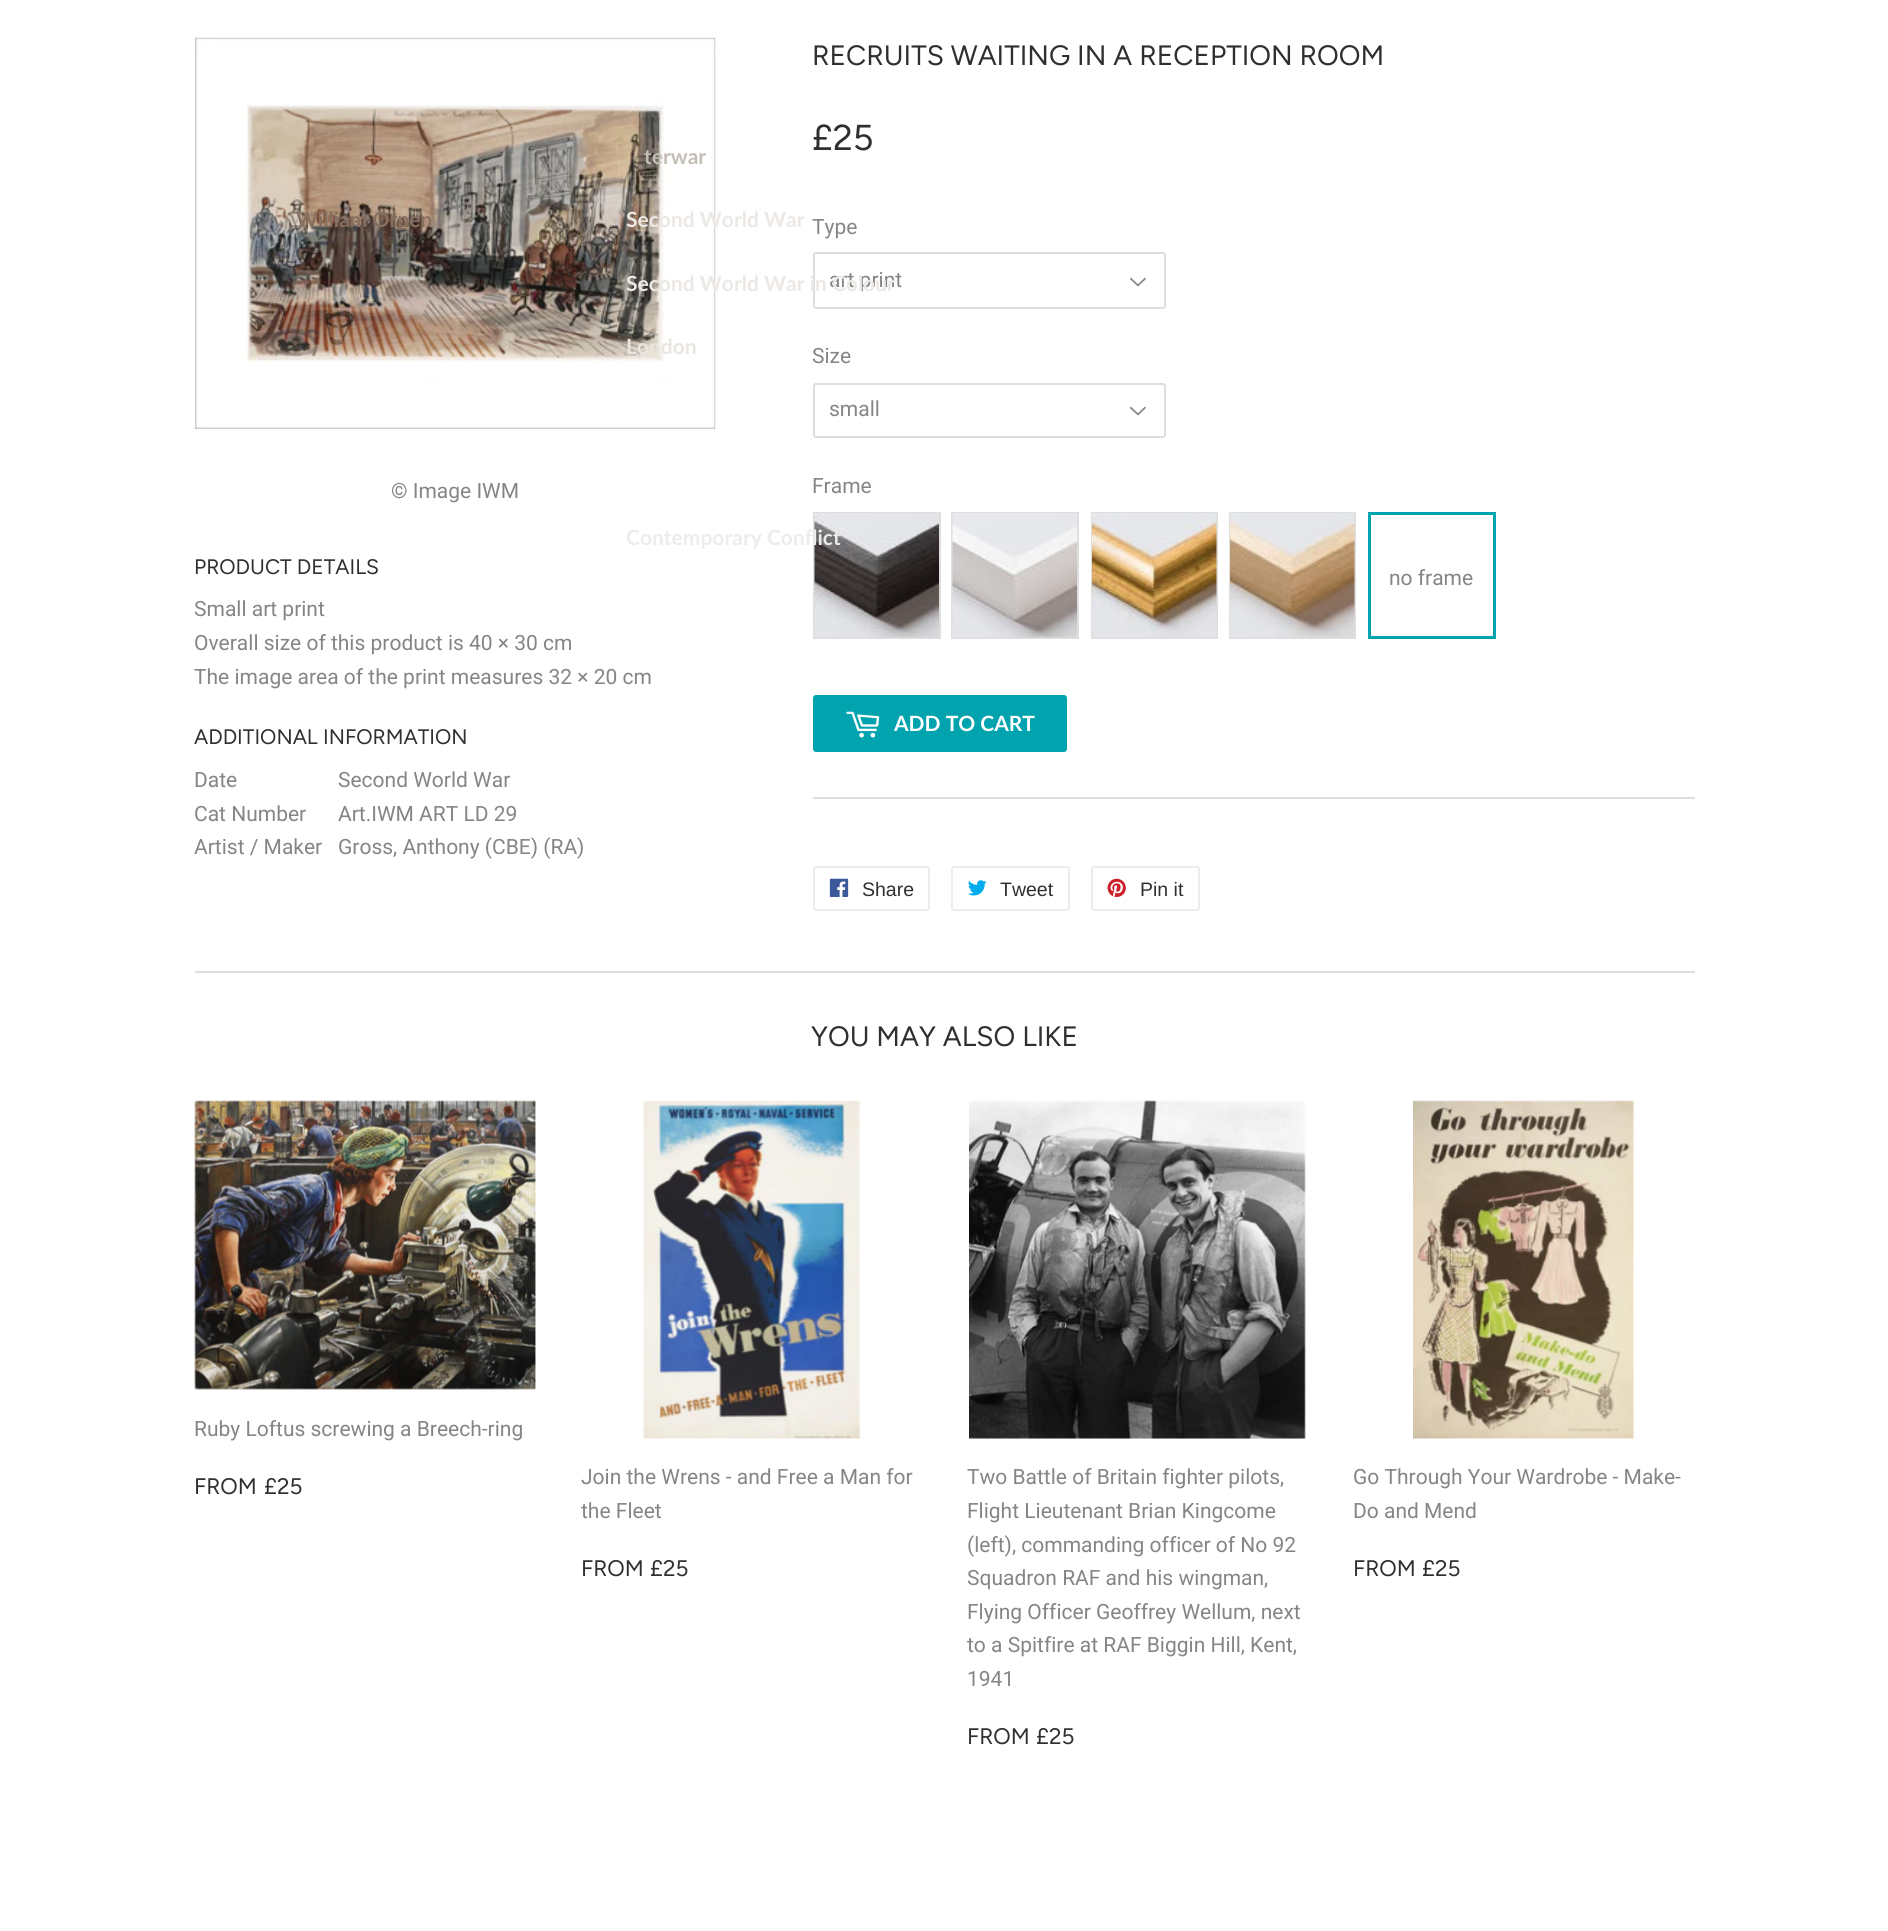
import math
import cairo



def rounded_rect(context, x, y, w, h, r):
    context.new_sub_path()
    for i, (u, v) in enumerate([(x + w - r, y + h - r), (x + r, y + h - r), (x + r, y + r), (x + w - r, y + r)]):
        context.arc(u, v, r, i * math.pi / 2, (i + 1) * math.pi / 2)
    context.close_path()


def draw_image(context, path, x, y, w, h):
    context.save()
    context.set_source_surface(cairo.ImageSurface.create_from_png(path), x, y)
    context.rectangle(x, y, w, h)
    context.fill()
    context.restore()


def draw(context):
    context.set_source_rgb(1, 1, 1)
    context.paint()
    draw_image(context, "images/1.png", 195, 37, 521, 392)
    draw_image(context, "images/2.png", 1130, 277, 16, 10)
    rounded_rect(context, 814, 253, 351, 55, 2)
    context.set_source_rgb(222 / 255, 222 / 255, 222 / 255)
    context.stroke()
    draw_image(context, "images/2.png", 1130, 406, 16, 10)
    rounded_rect(context, 814, 384, 351, 53, 2)
    context.stroke()
    context.rectangle(814, 513, 126, 125)
    context.stroke()
    draw_image(context, "images/3.png", 814, 513, 125, 125)
    context.rectangle(952, 513, 126, 125)
    context.stroke()
    draw_image(context, "images/4.png", 952, 513, 125, 125)
    context.rectangle(1092, 513, 125, 125)
    context.stroke()
    draw_image(context, "images/5.png", 1092, 513, 125, 125)
    context.rectangle(1230, 513, 125, 125)
    context.stroke()
    draw_image(context, "images/6.png", 1230, 513, 125, 125)
    context.rectangle(1369.5, 513.5, 125, 124)
    context.set_source_rgb(1 / 255, 163 / 255, 175 / 255)
    context.set_line_width(3)
    context.stroke()
    rounded_rect(context, 813, 695, 254, 57, 3)
    context.fill()
    draw_image(context, "images/7.png", 846, 711, 34, 27)
    context.set_source_rgb(222 / 255, 222 / 255, 222 / 255)
    context.rectangle(813, 797, 882, 2)
    context.fill()
    rounded_rect(context, 814, 867, 115, 43, 2)
    context.set_source_rgb(236 / 255, 236 / 255, 236 / 255)
    context.set_line_width(2)
    context.stroke()
    draw_image(context, "images/8.png", 829, 878, 20, 19)
    rounded_rect(context, 952, 867, 117, 43, 2)
    context.stroke()
    draw_image(context, "images/9.png", 968, 880, 19, 16)
    rounded_rect(context, 1092, 867, 107, 43, 2)
    context.stroke()
    draw_image(context, "images/10.png", 1107, 878, 19, 19)
    context.set_source_rgb(222 / 255, 222 / 255, 222 / 255)
    context.rectangle(195, 971, 1500, 2)
    context.fill()
    draw_image(context, "images/11.png", 194, 1100, 342, 290)
    draw_image(context, "images/12.png", 643, 1100, 217, 339)
    draw_image(context, "images/13.png", 969, 1100, 337, 339)
    draw_image(context, "images/14.png", 1413, 1100, 222, 339)
    context.select_font_face("Roboto")
    context.set_font_size(21)
    context.set_source_rgb(133 / 255, 133 / 255, 133 / 255)
    context.move_to(391, 498)
    context.show_text("© Image IWM")
    context.select_font_face("Figtree")
    context.set_source_rgb(47 / 255, 47 / 255, 47 / 255)
    context.move_to(194, 574)
    context.show_text("PRODUCT DETAILS")
    context.select_font_face("Roboto")
    context.set_source_rgb(133 / 255, 133 / 255, 133 / 255)
    context.move_to(194, 616)
    context.show_text("Small art print")
    context.move_to(194, 650)
    context.show_text("Overall size of this product is 40 × 30 cm")
    context.move_to(194, 684)
    context.show_text("The image area of the print measures 32 × 20 cm")
    context.select_font_face("Figtree")
    context.set_source_rgb(47 / 255, 47 / 255, 47 / 255)
    context.move_to(194, 744)
    context.show_text("ADDITIONAL INFORMATION")
    context.select_font_face("Roboto")
    context.set_source_rgb(133 / 255, 133 / 255, 133 / 255)
    context.move_to(194, 787)
    context.show_text("Date")
    context.move_to(338, 787)
    context.show_text("Second World War")
    context.move_to(194, 821)
    context.show_text("Cat Number")
    context.move_to(338, 821)
    context.show_text("Art.IWM ART LD 29")
    context.move_to(194, 854)
    context.show_text("Artist / Maker")
    context.move_to(338, 854)
    context.show_text("Gross, Anthony (CBE) (RA)")
    context.select_font_face("Figtree")
    context.set_font_size(28)
    context.set_source_rgb(47 / 255, 47 / 255, 47 / 255)
    context.move_to(812, 65)
    context.show_text("RECRUITS WAITING IN A RECEPTION ROOM")
    context.set_font_size(36)
    context.move_to(812, 150)
    context.show_text("£25")
    context.select_font_face("Roboto")
    context.set_font_size(21)
    context.set_source_rgb(133 / 255, 133 / 255, 133 / 255)
    context.move_to(812, 234)
    context.show_text("Type")
    context.move_to(829, 287)
    context.show_text("art print")
    context.move_to(812, 363)
    context.show_text("Size")
    context.move_to(829, 416)
    context.show_text("small")
    context.move_to(812, 493)
    context.show_text("Frame")
    context.move_to(1389, 585)
    context.show_text("no frame")
    context.select_font_face("Lato", cairo.FontSlant.NORMAL, cairo.FontWeight.BOLD)
    context.set_source_rgb(1, 1, 1)
    context.move_to(894, 731)
    context.show_text("ADD TO CART")
    context.select_font_face("Liberation Sans")
    context.set_font_size(19.5)
    context.set_source_rgb(47 / 255, 47 / 255, 47 / 255)
    context.move_to(862, 896)
    context.show_text("Share")
    context.move_to(1000, 896)
    context.show_text("Tweet")
    context.move_to(1140, 896)
    context.show_text("Pin it")
    context.select_font_face("Figtree")
    context.set_font_size(28)
    context.move_to(811, 1046)
    context.show_text("YOU MAY ALSO LIKE")
    context.select_font_face("Roboto")
    context.set_font_size(21)
    context.set_source_rgb(133 / 255, 133 / 255, 133 / 255)
    context.move_to(194, 1436)
    context.show_text("Ruby Loftus screwing a Breech-ring")
    context.select_font_face("Figtree")
    context.set_font_size(22.5)
    context.set_source_rgb(47 / 255, 47 / 255, 47 / 255)
    context.move_to(194, 1494)
    context.show_text("FROM")
    context.move_to(264, 1494)
    context.show_text("£25")
    context.select_font_face("Roboto")
    context.set_font_size(21)
    context.set_source_rgb(133 / 255, 133 / 255, 133 / 255)
    context.move_to(581, 1484)
    context.show_text("Join the Wrens - and Free a Man for")
    context.move_to(581, 1518)
    context.show_text("the Fleet")
    context.select_font_face("Figtree")
    context.set_font_size(22.5)
    context.set_source_rgb(47 / 255, 47 / 255, 47 / 255)
    context.move_to(581, 1576)
    context.show_text("FROM")
    context.move_to(650, 1576)
    context.show_text("£25")
    context.select_font_face("Roboto")
    context.set_font_size(21)
    context.set_source_rgb(133 / 255, 133 / 255, 133 / 255)
    context.move_to(967, 1484)
    context.show_text("Two Battle of Britain fighter pilots,")
    context.move_to(967, 1518)
    context.show_text("Flight Lieutenant Brian Kingcome")
    context.move_to(967, 1552)
    context.show_text("(left), commanding officer of No 92")
    context.move_to(967, 1585)
    context.show_text("Squadron RAF and his wingman,")
    context.move_to(967, 1619)
    context.show_text("Flying Officer Geoffrey Wellum, next")
    context.move_to(967, 1652)
    context.show_text("to a Spitfire at RAF Biggin Hill, Kent,")
    context.move_to(967, 1686)
    context.show_text("1941")
    context.select_font_face("Figtree")
    context.set_font_size(22.5)
    context.set_source_rgb(47 / 255, 47 / 255, 47 / 255)
    context.move_to(967, 1744)
    context.show_text("FROM")
    context.move_to(1036, 1744)
    context.show_text("£25")
    context.select_font_face("Roboto")
    context.set_font_size(21)
    context.set_source_rgb(133 / 255, 133 / 255, 133 / 255)
    context.move_to(1353, 1484)
    context.show_text("Go Through Your Wardrobe - Make-")
    context.move_to(1353, 1518)
    context.show_text("Do and Mend")
    context.select_font_face("Figtree")
    context.set_font_size(22.5)
    context.set_source_rgb(47 / 255, 47 / 255, 47 / 255)
    context.move_to(1353, 1576)
    context.show_text("FROM")
    context.move_to(1422, 1576)
    context.show_text("£25")
    context.select_font_face("Lato", cairo.FontSlant.NORMAL, cairo.FontWeight.BOLD)
    context.set_font_size(21)
    context.set_source_rgb(136 / 255, 112 / 255, 96 / 255)
    context.move_to(296, 227)
    context.show_text("William Orpen")
    context.set_source_rgb(195 / 255, 189 / 255, 182 / 255)
    context.move_to(644, 164)
    context.show_text("terwar")
    context.set_source_rgb(235 / 255, 232 / 255, 229 / 255)
    context.move_to(626, 227)
    context.show_text("Second World War")
    context.move_to(626, 291)
    context.show_text("Second World War in Colour")
    context.set_source_rgb(233 / 255, 229 / 255, 223 / 255)
    context.move_to(626, 354)
    context.show_text("London")
    context.set_source_rgb(236 / 255, 236 / 255, 236 / 255)
    context.move_to(626, 545)
    context.show_text("Contemporary Conflict")


surface = cairo.ImageSurface(cairo.Format.RGB24, 1888, 1931)
context = cairo.Context(surface)
options = cairo.FontOptions()
options.set_hint_metrics(cairo.HintMetrics.OFF)
options.set_hint_style(cairo.HintStyle.NONE)
context.set_font_options(options)
context.set_miter_limit(4)
draw(context)
surface.write_to_png("out.png")
